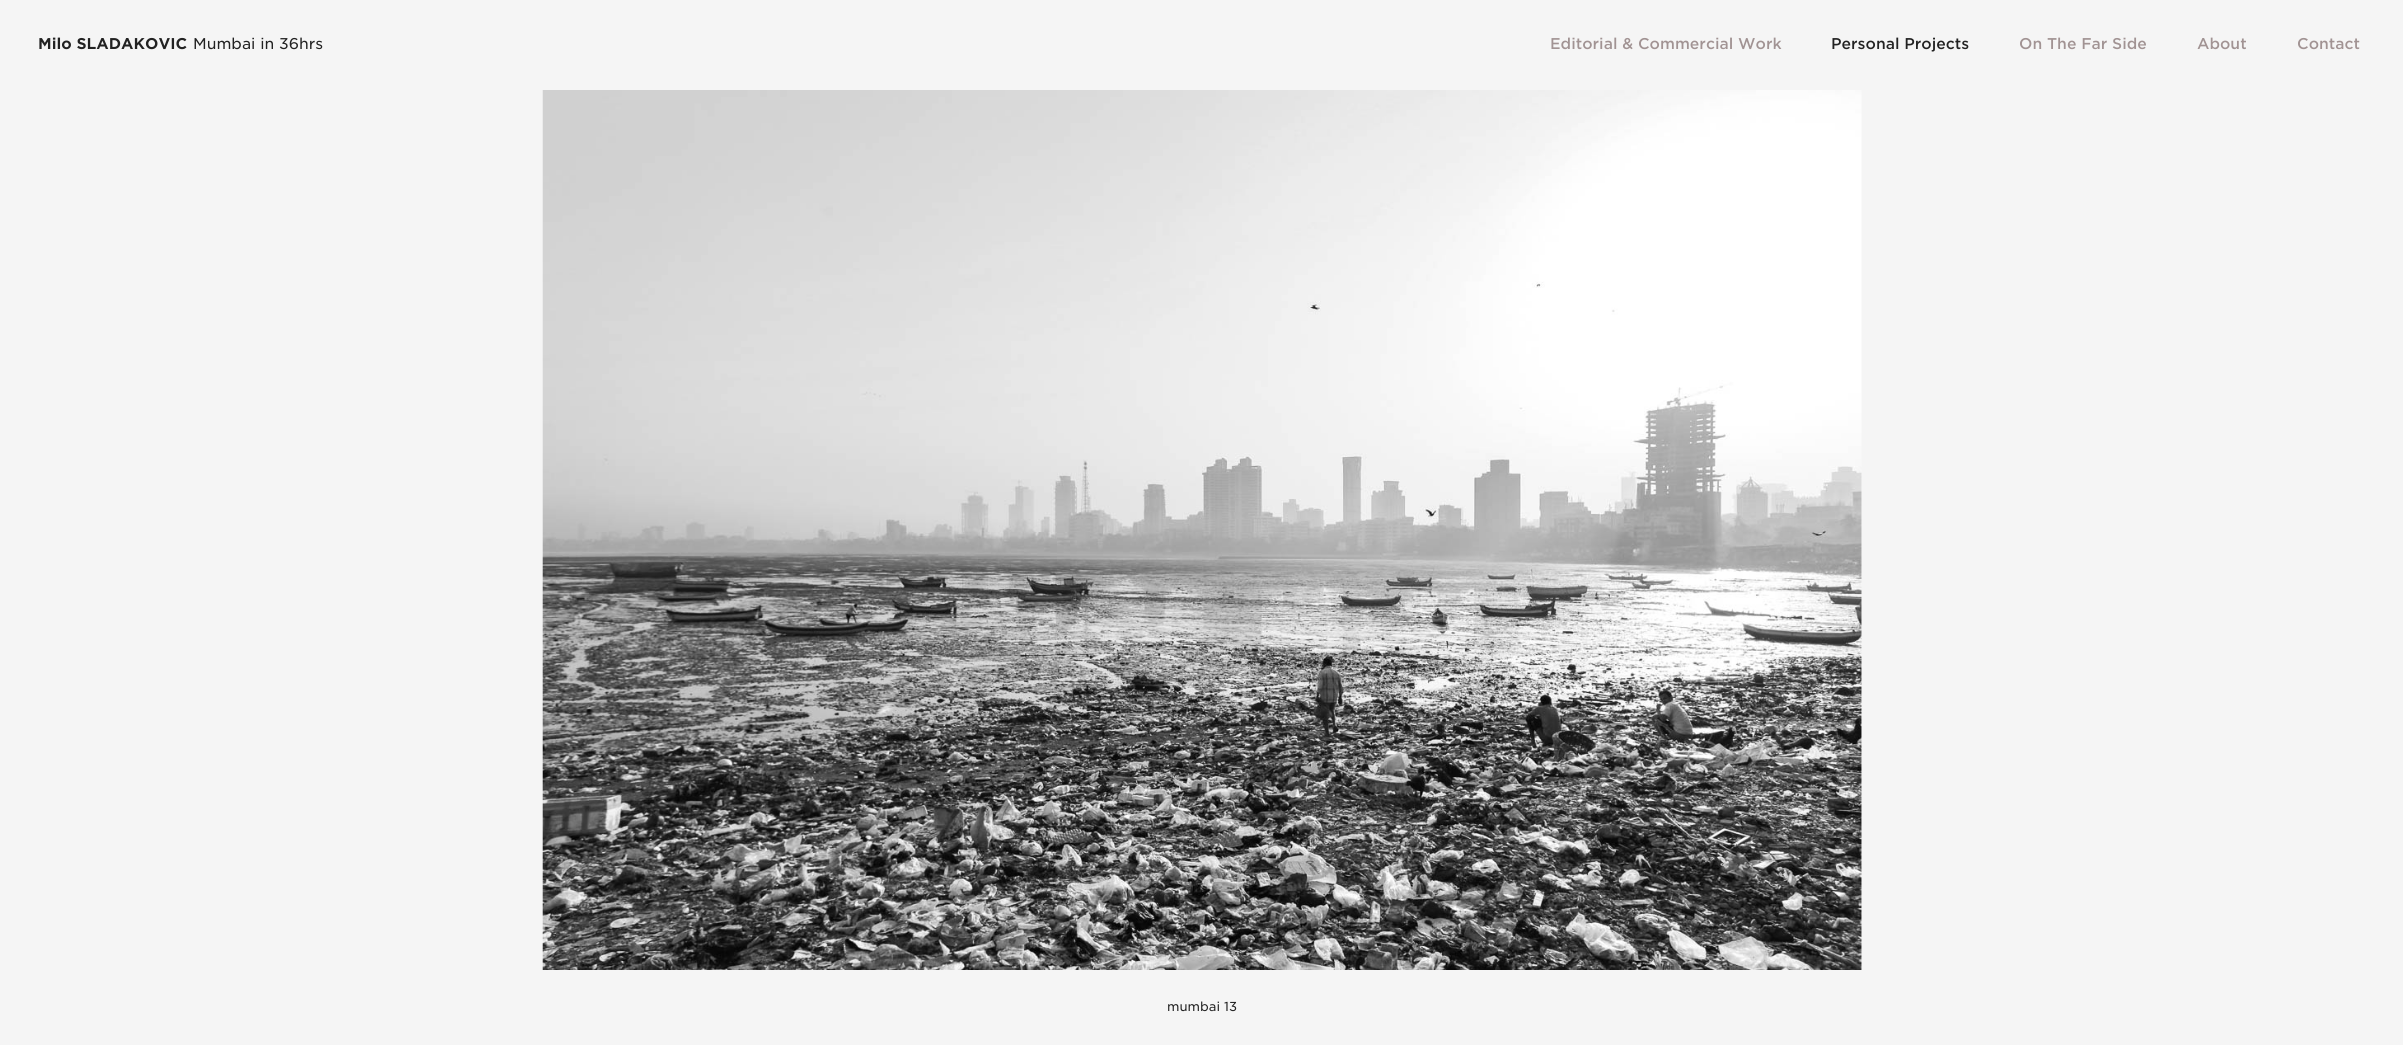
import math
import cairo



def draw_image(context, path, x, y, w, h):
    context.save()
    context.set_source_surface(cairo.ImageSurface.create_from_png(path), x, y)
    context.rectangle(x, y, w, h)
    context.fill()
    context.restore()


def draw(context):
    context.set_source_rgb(245 / 255, 245 / 255, 245 / 255)
    context.paint()
    draw_image(context, "images/1.png", 542, 90, 1320, 880)
    context.select_font_face("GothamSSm", cairo.FontSlant.NORMAL, cairo.FontWeight.BOLD)
    context.set_font_size(15)
    context.set_source_rgb(34 / 255, 34 / 255, 34 / 255)
    context.move_to(38, 49)
    context.show_text("Milo SLADAKOVIC")
    context.select_font_face("GothamSSm")
    context.move_to(193, 49)
    context.show_text("Mumbai in 36hrs")
    context.select_font_face("GothamSSm Medium")
    context.set_source_rgb(161 / 255, 147 / 255, 147 / 255)
    context.move_to(1550, 49)
    context.show_text("Editorial & Commercial Work")
    context.set_source_rgb(34 / 255, 34 / 255, 34 / 255)
    context.move_to(1831, 49)
    context.show_text("Personal Projects")
    context.set_source_rgb(161 / 255, 147 / 255, 147 / 255)
    context.move_to(2019, 49)
    context.show_text("On The Far Side")
    context.move_to(2197, 49)
    context.show_text("About")
    context.move_to(2297, 49)
    context.show_text("Contact")
    context.select_font_face("GothamSSm")
    context.set_font_size(12.5)
    context.set_source_rgb(34 / 255, 34 / 255, 34 / 255)
    context.move_to(1167, 1011)
    context.show_text("mumbai 13")


surface = cairo.ImageSurface(cairo.Format.RGB24, 2403, 1045)
context = cairo.Context(surface)
options = cairo.FontOptions()
options.set_hint_metrics(cairo.HintMetrics.OFF)
options.set_hint_style(cairo.HintStyle.NONE)
context.set_font_options(options)
context.set_miter_limit(4)
draw(context)
surface.write_to_png("out.png")
